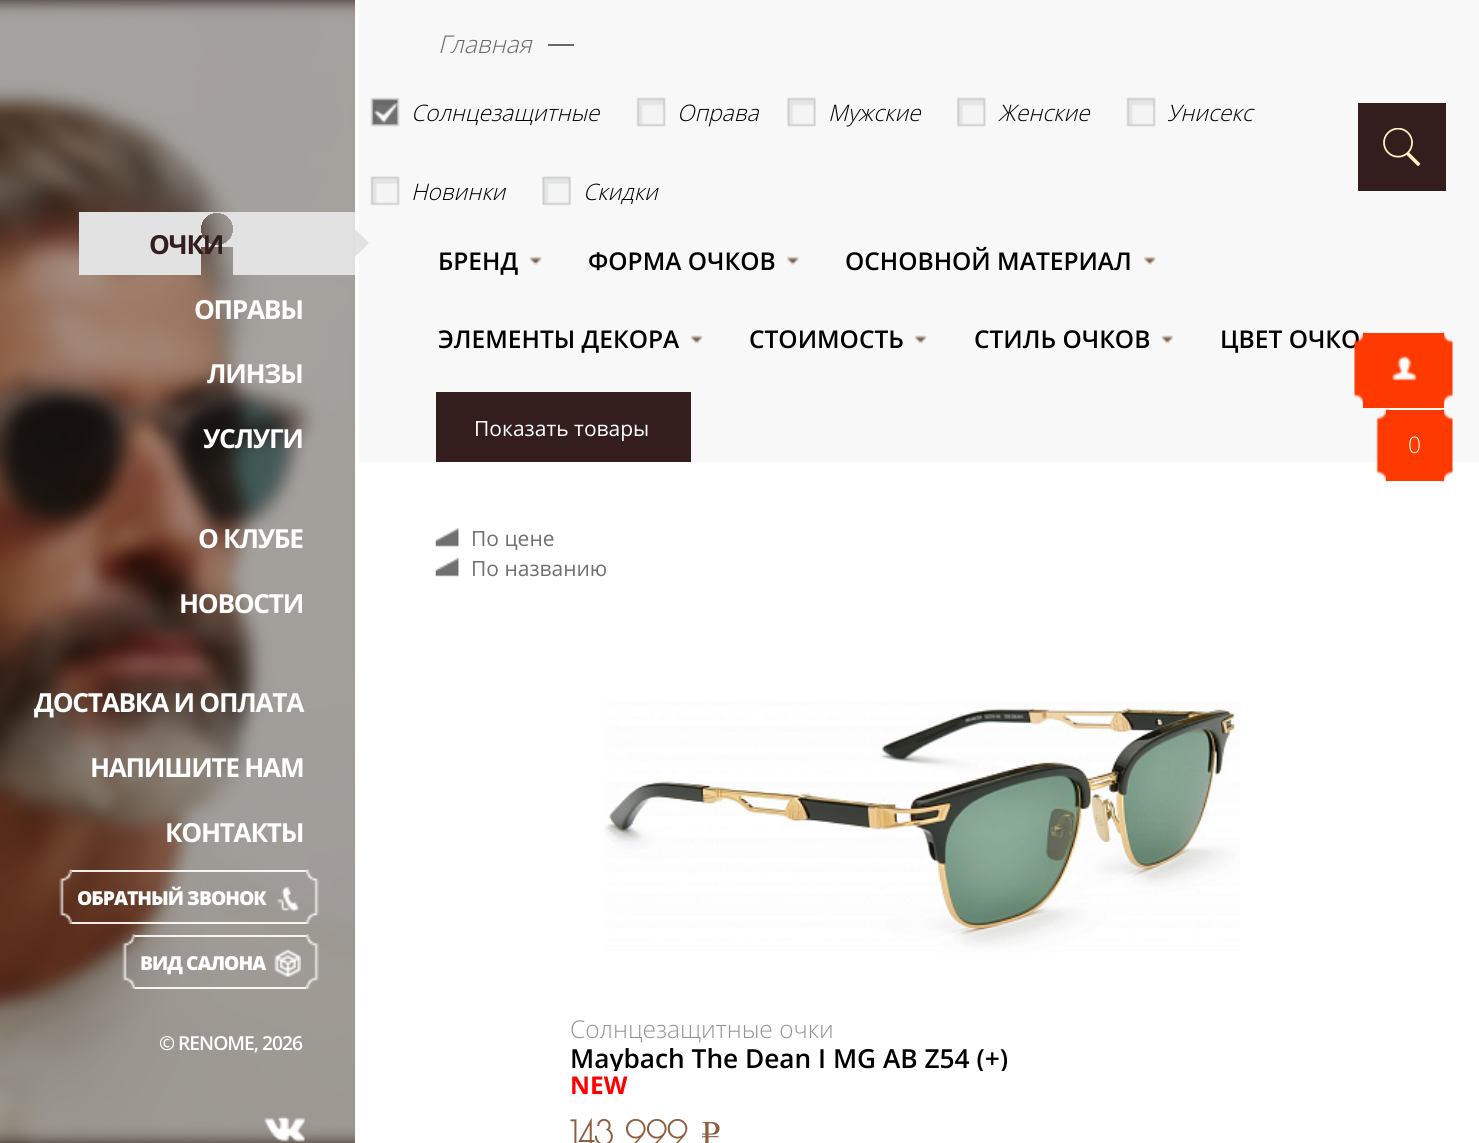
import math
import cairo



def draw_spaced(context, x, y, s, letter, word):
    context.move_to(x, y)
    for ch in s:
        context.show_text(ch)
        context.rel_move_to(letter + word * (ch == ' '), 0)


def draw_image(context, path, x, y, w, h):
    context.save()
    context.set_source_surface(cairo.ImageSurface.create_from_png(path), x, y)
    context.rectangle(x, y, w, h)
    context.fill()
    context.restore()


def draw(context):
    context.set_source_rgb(1, 1, 1)
    context.paint()
    context.set_source_rgb(41 / 255, 23 / 255, 19 / 255)
    context.rectangle(0, 0, 355, 1143)
    context.fill()
    draw_image(context, "images/1.png", 0, 0, 356, 1143)
    context.set_source_rgb(248 / 255, 248 / 255, 248 / 255)
    context.rectangle(359, 0, 1120, 462)
    context.fill()
    context.set_source_rgb(226 / 255, 226 / 255, 226 / 255)
    context.new_path()
    context.move_to(355, 257)
    context.line_to(355, 229)
    context.line_to(369, 243)
    context.close_path()
    context.fill()
    context.set_source_rgba(1, 1, 1, 0.9)
    context.rectangle(72, 870, 234, 2)
    context.fill()
    context.rectangle(72, 922, 234, 2)
    context.fill()
    draw_image(context, "images/2.png", 59, 869, 13, 55)
    draw_image(context, "images/3.png", 276, 886, 24, 26)
    draw_image(context, "images/4.png", 306, 869, 13, 55)
    context.rectangle(135, 935, 171, 2)
    context.fill()
    context.rectangle(135, 987, 171, 2)
    context.fill()
    draw_image(context, "images/5.png", 122, 934, 13, 55)
    draw_image(context, "images/6.png", 274, 949, 27, 29)
    draw_image(context, "images/7.png", 306, 934, 13, 55)
    draw_image(context, "images/8.png", 264, 1116, 41, 26)
    context.set_source_rgb(104 / 255, 104 / 255, 105 / 255)
    context.rectangle(548, 44, 26, 2)
    context.fill()
    draw_image(context, "images/9.png", 370, 97, 30, 30)
    draw_image(context, "images/10.png", 636, 97, 30, 30)
    draw_image(context, "images/11.png", 787, 97, 29, 30)
    draw_image(context, "images/12.png", 957, 97, 29, 30)
    draw_image(context, "images/10.png", 1126, 97, 30, 30)
    draw_image(context, "images/13.png", 370, 176, 30, 30)
    draw_image(context, "images/14.png", 542, 176, 29, 30)
    draw_image(context, "images/15.png", 529, 256, 13, 9)
    draw_image(context, "images/16.png", 787, 256, 12, 9)
    draw_image(context, "images/16.png", 1144, 256, 12, 9)
    draw_image(context, "images/17.png", 690, 335, 13, 9)
    draw_image(context, "images/18.png", 914, 335, 13, 9)
    draw_image(context, "images/19.png", 1161, 335, 13, 9)
    context.set_source_rgb(52 / 255, 30 / 255, 29 / 255)
    context.rectangle(1358, 103, 88, 88)
    context.fill()
    draw_image(context, "images/20.png", 1383, 128, 38, 38)
    context.rectangle(436, 392, 255, 70)
    context.fill()
    draw_image(context, "images/21.png", 435, 528, 24, 19)
    draw_image(context, "images/22.png", 435, 558, 24, 19)
    context.set_source_rgb(1, 58 / 255, 0)
    context.rectangle(1363, 333, 81, 75)
    context.fill()
    draw_image(context, "images/24.png", 1392, 356, 25, 25)
    draw_image(context, "images/25.png", 1441, 332, 12, 73)
    context.rectangle(1386, 410, 58, 71)
    context.fill()
    draw_image(context, "images/26.png", 1376, 409, 13, 73)
    draw_image(context, "images/27.png", 1441, 409, 12, 73)
    draw_image(context, "images/28.png", 604, 701, 636, 252)
    context.select_font_face("Open Sans", cairo.FontSlant.NORMAL, cairo.FontWeight.BOLD)
    context.set_font_size(26.25)
    context.set_source_rgb(52 / 255, 30 / 255, 29 / 255)
    draw_spaced(context, 149, 254, "ОЧКИ", -1.3, 0)
    context.set_source_rgb(1, 1, 1)
    draw_spaced(context, 194, 319, "ОПРАВЫ", -1.3, 0)
    draw_spaced(context, 207, 383, "ЛИНЗЫ", -1.3, 0)
    draw_spaced(context, 203, 448, "УСЛУГИ", -1.3, 0)
    draw_spaced(context, 198, 548, "О КЛУБЕ", -1.3, 0)
    draw_spaced(context, 179, 613, "НОВОСТИ", -1.3, 0)
    draw_spaced(context, 34, 712, "ДОСТАВКА И ОПЛАТА", -1.3, 0)
    draw_spaced(context, 90, 777, "НАПИШИТЕ НАМ", -1.3, 0)
    draw_spaced(context, 165, 842, "КОНТАКТЫ", -1.3, 0)
    context.select_font_face("Open Sans ExtraBold")
    context.set_font_size(19.25)
    draw_spaced(context, 77, 905, "ОБРАТНЫЙ ЗВОНОК", -1, 0)
    draw_spaced(context, 140, 970, "ВИД САЛОНА", -1, 0)
    context.select_font_face("Open Sans SemiBold")
    draw_spaced(context, 159, 1050, "© RENOME, 2026", -1, 0)
    context.select_font_face("Open Sans Light", cairo.FontSlant.ITALIC)
    context.set_font_size(24.5)
    context.set_source_rgb(104 / 255, 104 / 255, 105 / 255)
    context.move_to(438, 53)
    context.show_text("Главная")
    context.set_font_size(22.75)
    context.set_source_rgb(0, 0, 0)
    context.move_to(411, 121)
    context.show_text("Солнцезащитные")
    context.move_to(677, 121)
    context.show_text("Оправа")
    context.move_to(828, 121)
    context.show_text("Мужские")
    context.move_to(998, 121)
    context.show_text("Женские")
    context.move_to(1167, 121)
    context.show_text("Унисекс")
    context.move_to(411, 200)
    context.show_text("Новинки")
    context.move_to(583, 200)
    context.show_text("Скидки")
    context.select_font_face("Open Sans SemiBold")
    context.set_font_size(24.5)
    context.move_to(438, 270)
    context.show_text("БРЕНД")
    context.move_to(588, 270)
    context.show_text("ФОРМА ОЧКОВ")
    context.move_to(845, 270)
    context.show_text("ОСНОВНОЙ МАТЕРИАЛ")
    context.move_to(438, 348)
    context.show_text("ЭЛЕМЕНТЫ ДЕКОРА")
    context.move_to(749, 348)
    context.show_text("СТОИМОСТЬ")
    context.move_to(974, 348)
    context.show_text("СТИЛЬ ОЧКОВ")
    context.move_to(1220, 348)
    context.show_text("ЦВЕТ ОЧКО")
    context.select_font_face("Open Sans")
    context.set_font_size(21)
    context.set_source_rgb(1, 1, 1)
    context.move_to(474, 436)
    context.show_text("Показать товары")
    context.set_source_rgb(112 / 255, 112 / 255, 112 / 255)
    context.move_to(471, 546)
    context.show_text("По цене")
    context.move_to(471, 576)
    context.show_text("По названию")
    draw_image(context, "images/23.png", 1354, 332, 12, 73)
    context.select_font_face("Open Sans Light")
    context.set_font_size(22.75)
    context.set_source_rgb(1, 1, 1)
    context.move_to(1408, 453)
    context.show_text("0")
    context.set_font_size(24.5)
    context.set_source_rgb(148 / 255, 148 / 255, 148 / 255)
    context.move_to(570, 1038)
    context.show_text("Солнцезащитные очки")
    context.save()
    context.rectangle(571, 1043, 525, 28)
    context.clip()
    context.select_font_face("Open Sans SemiBold")
    context.set_font_size(26.25)
    context.set_source_rgb(0, 0, 0)
    context.move_to(570, 1068)
    context.show_text("Maybach The Dean I MG AB Z54 (+)")
    context.restore()
    context.select_font_face("Open Sans", cairo.FontSlant.NORMAL, cairo.FontWeight.BOLD)
    context.set_source_rgb(1, 0, 0)
    context.move_to(570, 1094)
    context.show_text("NEW")
    context.select_font_face("Poiret One", cairo.FontSlant.NORMAL, cairo.FontWeight.BOLD)
    context.set_font_size(33)
    context.set_source_rgb(142 / 255, 94 / 255, 65 / 255)
    context.move_to(570, 1145)
    context.show_text("143 999")
    context.select_font_face("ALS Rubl")
    context.move_to(700, 1145)
    context.show_text("k")


surface = cairo.ImageSurface(cairo.Format.RGB24, 1479, 1143)
context = cairo.Context(surface)
options = cairo.FontOptions()
options.set_hint_metrics(cairo.HintMetrics.OFF)
options.set_hint_style(cairo.HintStyle.NONE)
context.set_font_options(options)
context.set_miter_limit(4)
draw(context)
surface.write_to_png("out.png")
